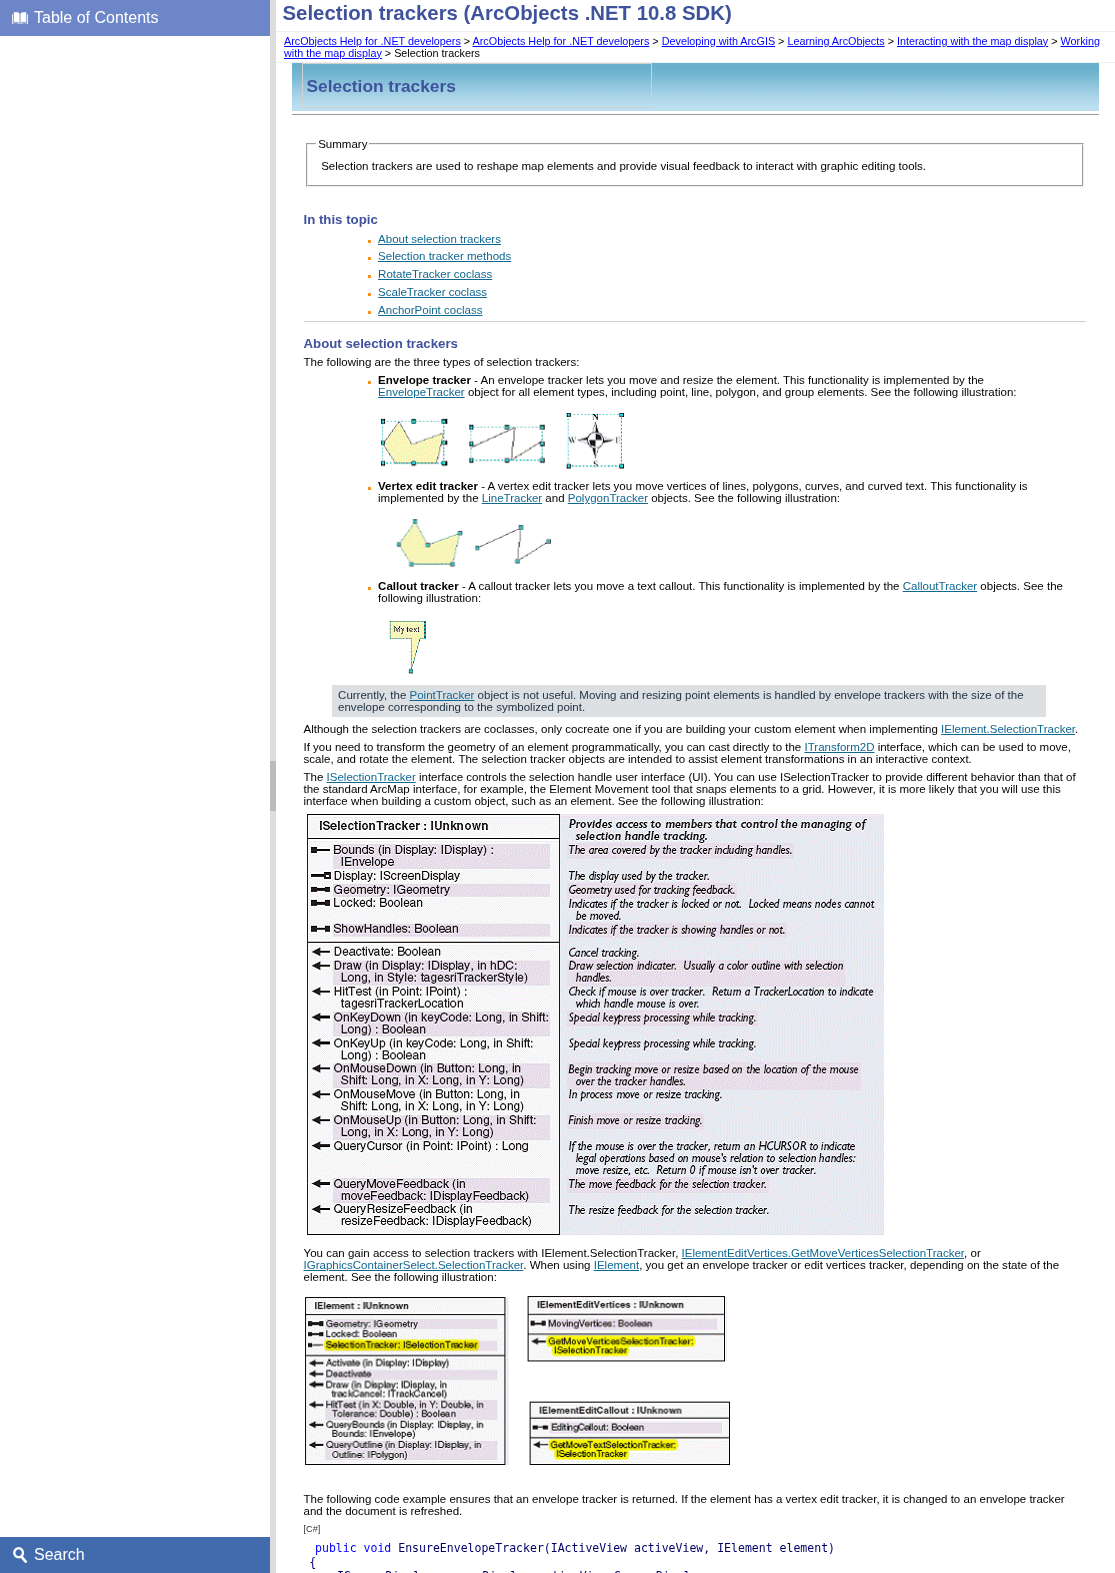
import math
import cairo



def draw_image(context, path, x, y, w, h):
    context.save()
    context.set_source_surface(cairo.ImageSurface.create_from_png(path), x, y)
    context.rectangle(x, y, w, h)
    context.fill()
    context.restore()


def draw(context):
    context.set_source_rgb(1, 1, 1)
    context.paint()
    draw_image(context, "images/1.png", 0, 0, 270, 1573)
    context.set_source_rgb(221 / 255, 221 / 255, 221 / 255)
    context.rectangle(270, 0, 6, 1573)
    context.fill()
    context.set_source_rgb(187 / 255, 187 / 255, 187 / 255)
    context.rectangle(270, 761, 6, 50)
    context.fill()
    draw_image(context, "images/2.png", 276, 5, 839, 1568)


surface = cairo.ImageSurface(cairo.Format.RGB24, 1115, 1573)
context = cairo.Context(surface)
options = cairo.FontOptions()
options.set_hint_metrics(cairo.HintMetrics.OFF)
options.set_hint_style(cairo.HintStyle.NONE)
context.set_font_options(options)
context.set_miter_limit(4)
draw(context)
surface.write_to_png("out.png")
